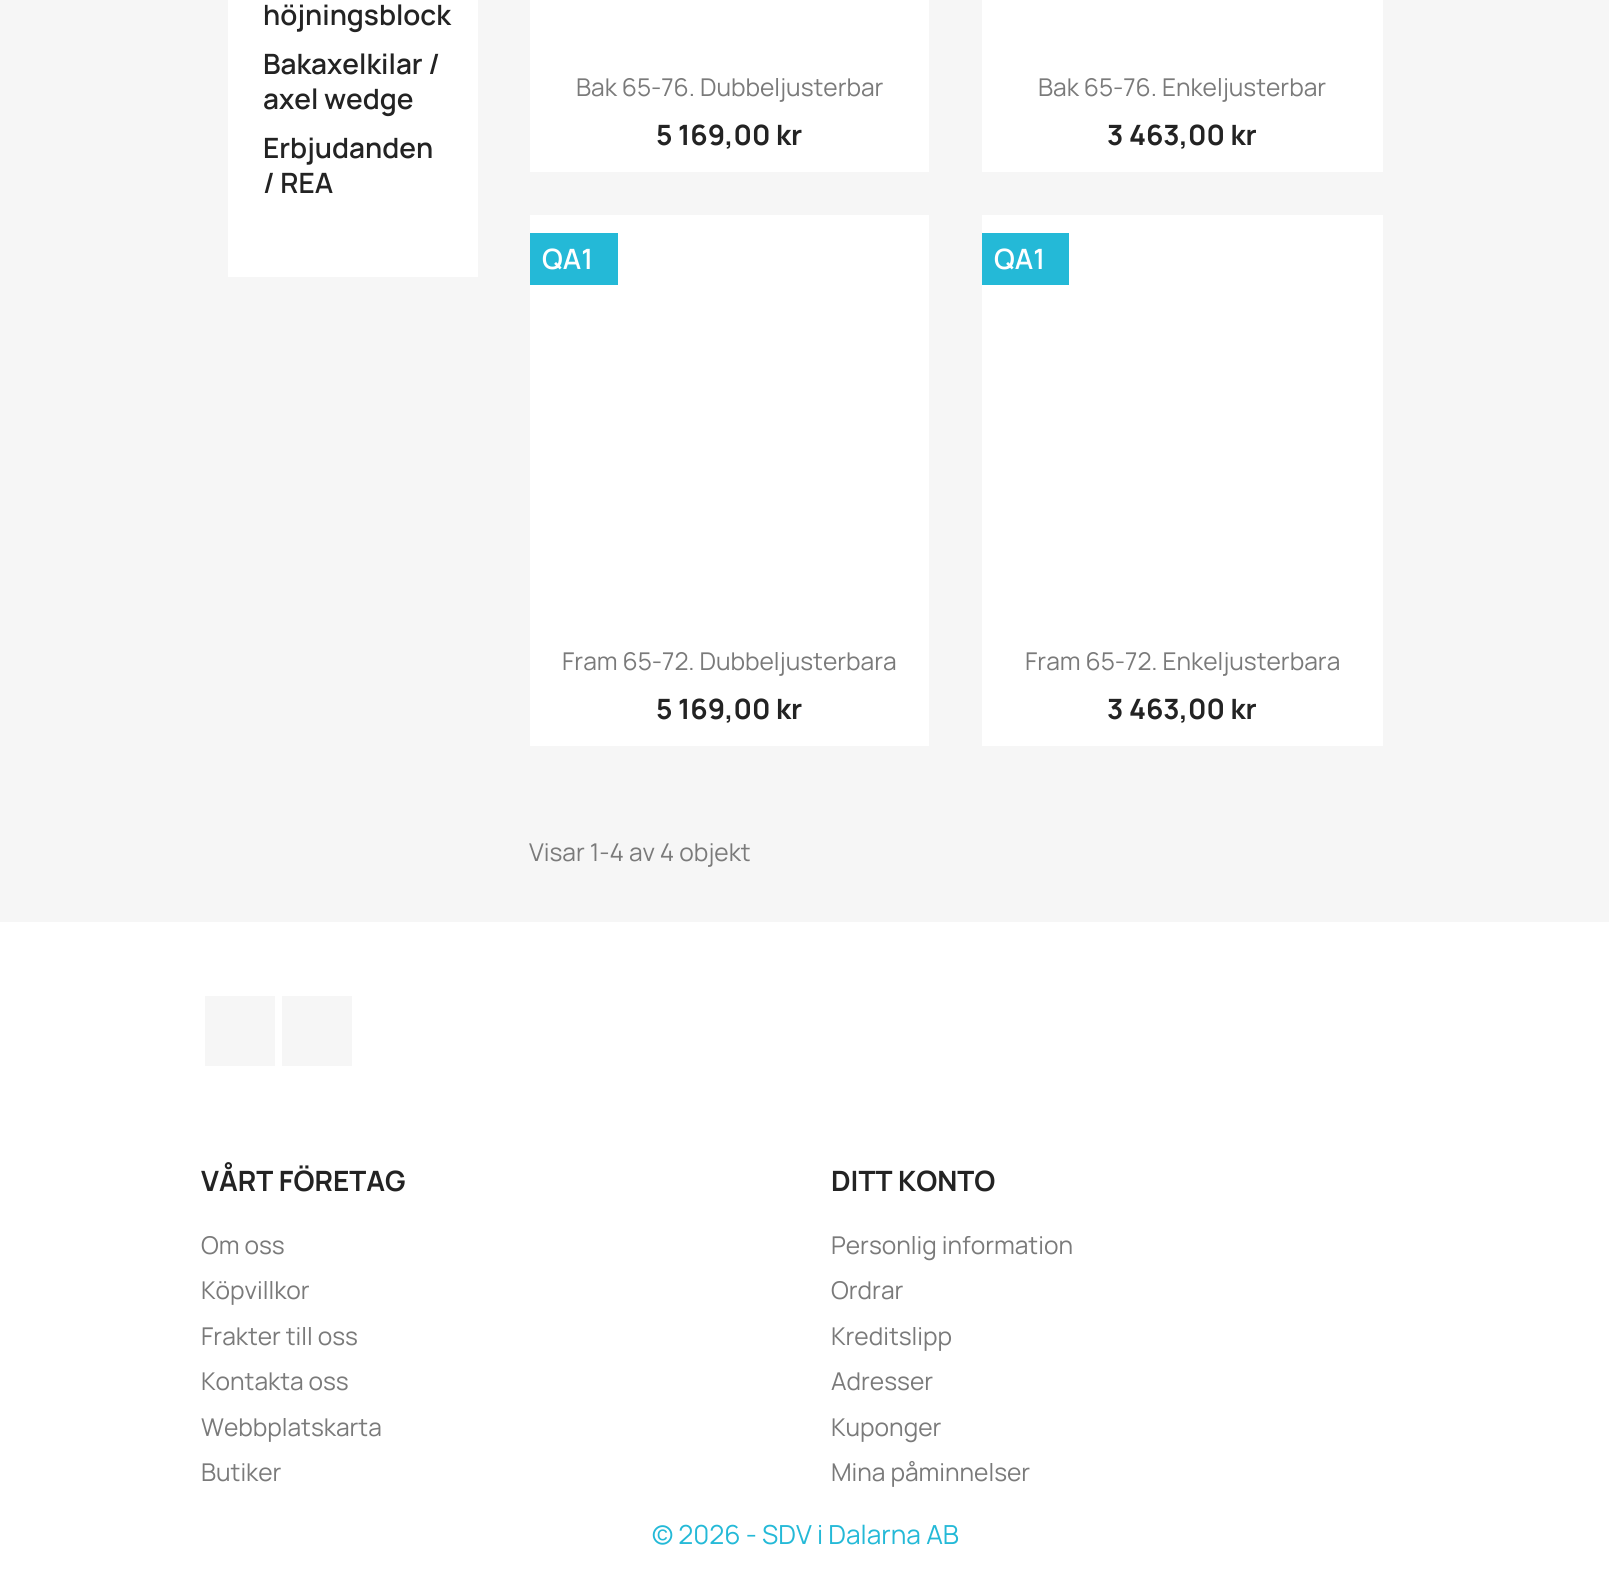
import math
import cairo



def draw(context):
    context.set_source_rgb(1, 1, 1)
    context.paint()
    context.set_source_rgb(246 / 255, 246 / 255, 246 / 255)
    context.rectangle(0, 0, 1609, 922)
    context.fill()
    context.set_source_rgb(1, 1, 1)
    context.rectangle(228, 0, 250, 277)
    context.fill()
    context.rectangle(530, 0, 399, 172)
    context.fill()
    context.rectangle(982, 0, 401, 172)
    context.fill()
    context.rectangle(530, 215, 399, 531)
    context.fill()
    context.set_source_rgb(36 / 255, 185 / 255, 215 / 255)
    context.rectangle(530, 233, 88, 52)
    context.fill()
    context.set_source_rgb(1, 1, 1)
    context.rectangle(982, 215, 401, 531)
    context.fill()
    context.set_source_rgb(36 / 255, 185 / 255, 215 / 255)
    context.rectangle(982, 233, 87, 52)
    context.fill()
    context.set_source_rgb(246 / 255, 246 / 255, 246 / 255)
    context.rectangle(205, 996, 70, 70)
    context.fill()
    context.rectangle(282, 996, 70, 70)
    context.fill()
    context.select_font_face("Manrope SemiBold")
    context.set_font_size(28)
    context.set_source_rgb(35 / 255, 35 / 255, 35 / 255)
    context.move_to(263, 25)
    context.show_text("höjningsblock")
    context.move_to(263, 74)
    context.show_text("Bakaxelkilar /")
    context.move_to(263, 109)
    context.show_text("axel wedge")
    context.move_to(263, 158)
    context.show_text("Erbjudanden")
    context.move_to(263, 193)
    context.show_text("/ REA")
    context.select_font_face("Manrope")
    context.set_font_size(24.5)
    context.set_source_rgb(122 / 255, 122 / 255, 122 / 255)
    context.move_to(576, 96)
    context.show_text("Bak 65-76. Dubbeljusterbar")
    context.select_font_face("Manrope", cairo.FontSlant.NORMAL, cairo.FontWeight.BOLD)
    context.set_font_size(28)
    context.set_source_rgb(35 / 255, 35 / 255, 35 / 255)
    context.move_to(656, 145)
    context.show_text("5 169,00 kr")
    context.select_font_face("Manrope")
    context.set_font_size(24.5)
    context.set_source_rgb(122 / 255, 122 / 255, 122 / 255)
    context.move_to(1038, 96)
    context.show_text("Bak 65-76. Enkeljusterbar")
    context.select_font_face("Manrope", cairo.FontSlant.NORMAL, cairo.FontWeight.BOLD)
    context.set_font_size(28)
    context.set_source_rgb(35 / 255, 35 / 255, 35 / 255)
    context.move_to(1107, 145)
    context.show_text("3 463,00 kr")
    context.select_font_face("Manrope SemiBold")
    context.set_source_rgb(1, 1, 1)
    context.move_to(542, 269)
    context.show_text("QA1")
    context.select_font_face("Manrope")
    context.set_font_size(24.5)
    context.set_source_rgb(122 / 255, 122 / 255, 122 / 255)
    context.move_to(562, 670)
    context.show_text("Fram 65-72. Dubbeljusterbara")
    context.select_font_face("Manrope", cairo.FontSlant.NORMAL, cairo.FontWeight.BOLD)
    context.set_font_size(28)
    context.set_source_rgb(35 / 255, 35 / 255, 35 / 255)
    context.move_to(656, 719)
    context.show_text("5 169,00 kr")
    context.select_font_face("Manrope SemiBold")
    context.set_source_rgb(1, 1, 1)
    context.move_to(994, 269)
    context.show_text("QA1")
    context.select_font_face("Manrope")
    context.set_font_size(24.5)
    context.set_source_rgb(122 / 255, 122 / 255, 122 / 255)
    context.move_to(1025, 670)
    context.show_text("Fram 65-72. Enkeljusterbara")
    context.select_font_face("Manrope", cairo.FontSlant.NORMAL, cairo.FontWeight.BOLD)
    context.set_font_size(28)
    context.set_source_rgb(35 / 255, 35 / 255, 35 / 255)
    context.move_to(1107, 719)
    context.show_text("3 463,00 kr")
    context.select_font_face("Manrope")
    context.set_font_size(24.5)
    context.set_source_rgb(122 / 255, 122 / 255, 122 / 255)
    context.move_to(529, 861)
    context.show_text("Visar 1-4 av 4 objekt")
    context.select_font_face("Manrope", cairo.FontSlant.NORMAL, cairo.FontWeight.BOLD)
    context.set_font_size(28)
    context.set_source_rgb(35 / 255, 35 / 255, 35 / 255)
    context.move_to(201, 1191)
    context.show_text("VÅRT FÖRETAG")
    context.select_font_face("Manrope")
    context.set_font_size(24.5)
    context.set_source_rgb(122 / 255, 122 / 255, 122 / 255)
    context.move_to(201, 1254)
    context.show_text("Om oss")
    context.move_to(201, 1299)
    context.show_text("Köpvillkor")
    context.move_to(201, 1345)
    context.show_text("Frakter till oss")
    context.move_to(201, 1390)
    context.show_text("Kontakta oss")
    context.move_to(201, 1436)
    context.show_text("Webbplatskarta")
    context.move_to(201, 1481)
    context.show_text("Butiker")
    context.select_font_face("Manrope", cairo.FontSlant.NORMAL, cairo.FontWeight.BOLD)
    context.set_font_size(28)
    context.set_source_rgb(35 / 255, 35 / 255, 35 / 255)
    context.move_to(831, 1191)
    context.show_text("DITT KONTO")
    context.select_font_face("Manrope")
    context.set_font_size(24.5)
    context.set_source_rgb(122 / 255, 122 / 255, 122 / 255)
    context.move_to(831, 1254)
    context.show_text("Personlig information")
    context.move_to(831, 1299)
    context.show_text("Ordrar")
    context.move_to(831, 1345)
    context.show_text("Kreditslipp")
    context.move_to(831, 1390)
    context.show_text("Adresser")
    context.move_to(831, 1436)
    context.show_text("Kuponger")
    context.move_to(831, 1481)
    context.show_text("Mina påminnelser")
    context.set_font_size(26.25)
    context.set_source_rgb(36 / 255, 185 / 255, 215 / 255)
    context.move_to(652, 1544)
    context.show_text("© 2026 - SDV i Dalarna AB")


surface = cairo.ImageSurface(cairo.Format.RGB24, 1609, 1580)
context = cairo.Context(surface)
options = cairo.FontOptions()
options.set_hint_metrics(cairo.HintMetrics.OFF)
options.set_hint_style(cairo.HintStyle.NONE)
context.set_font_options(options)
context.set_miter_limit(4)
draw(context)
surface.write_to_png("out.png")
